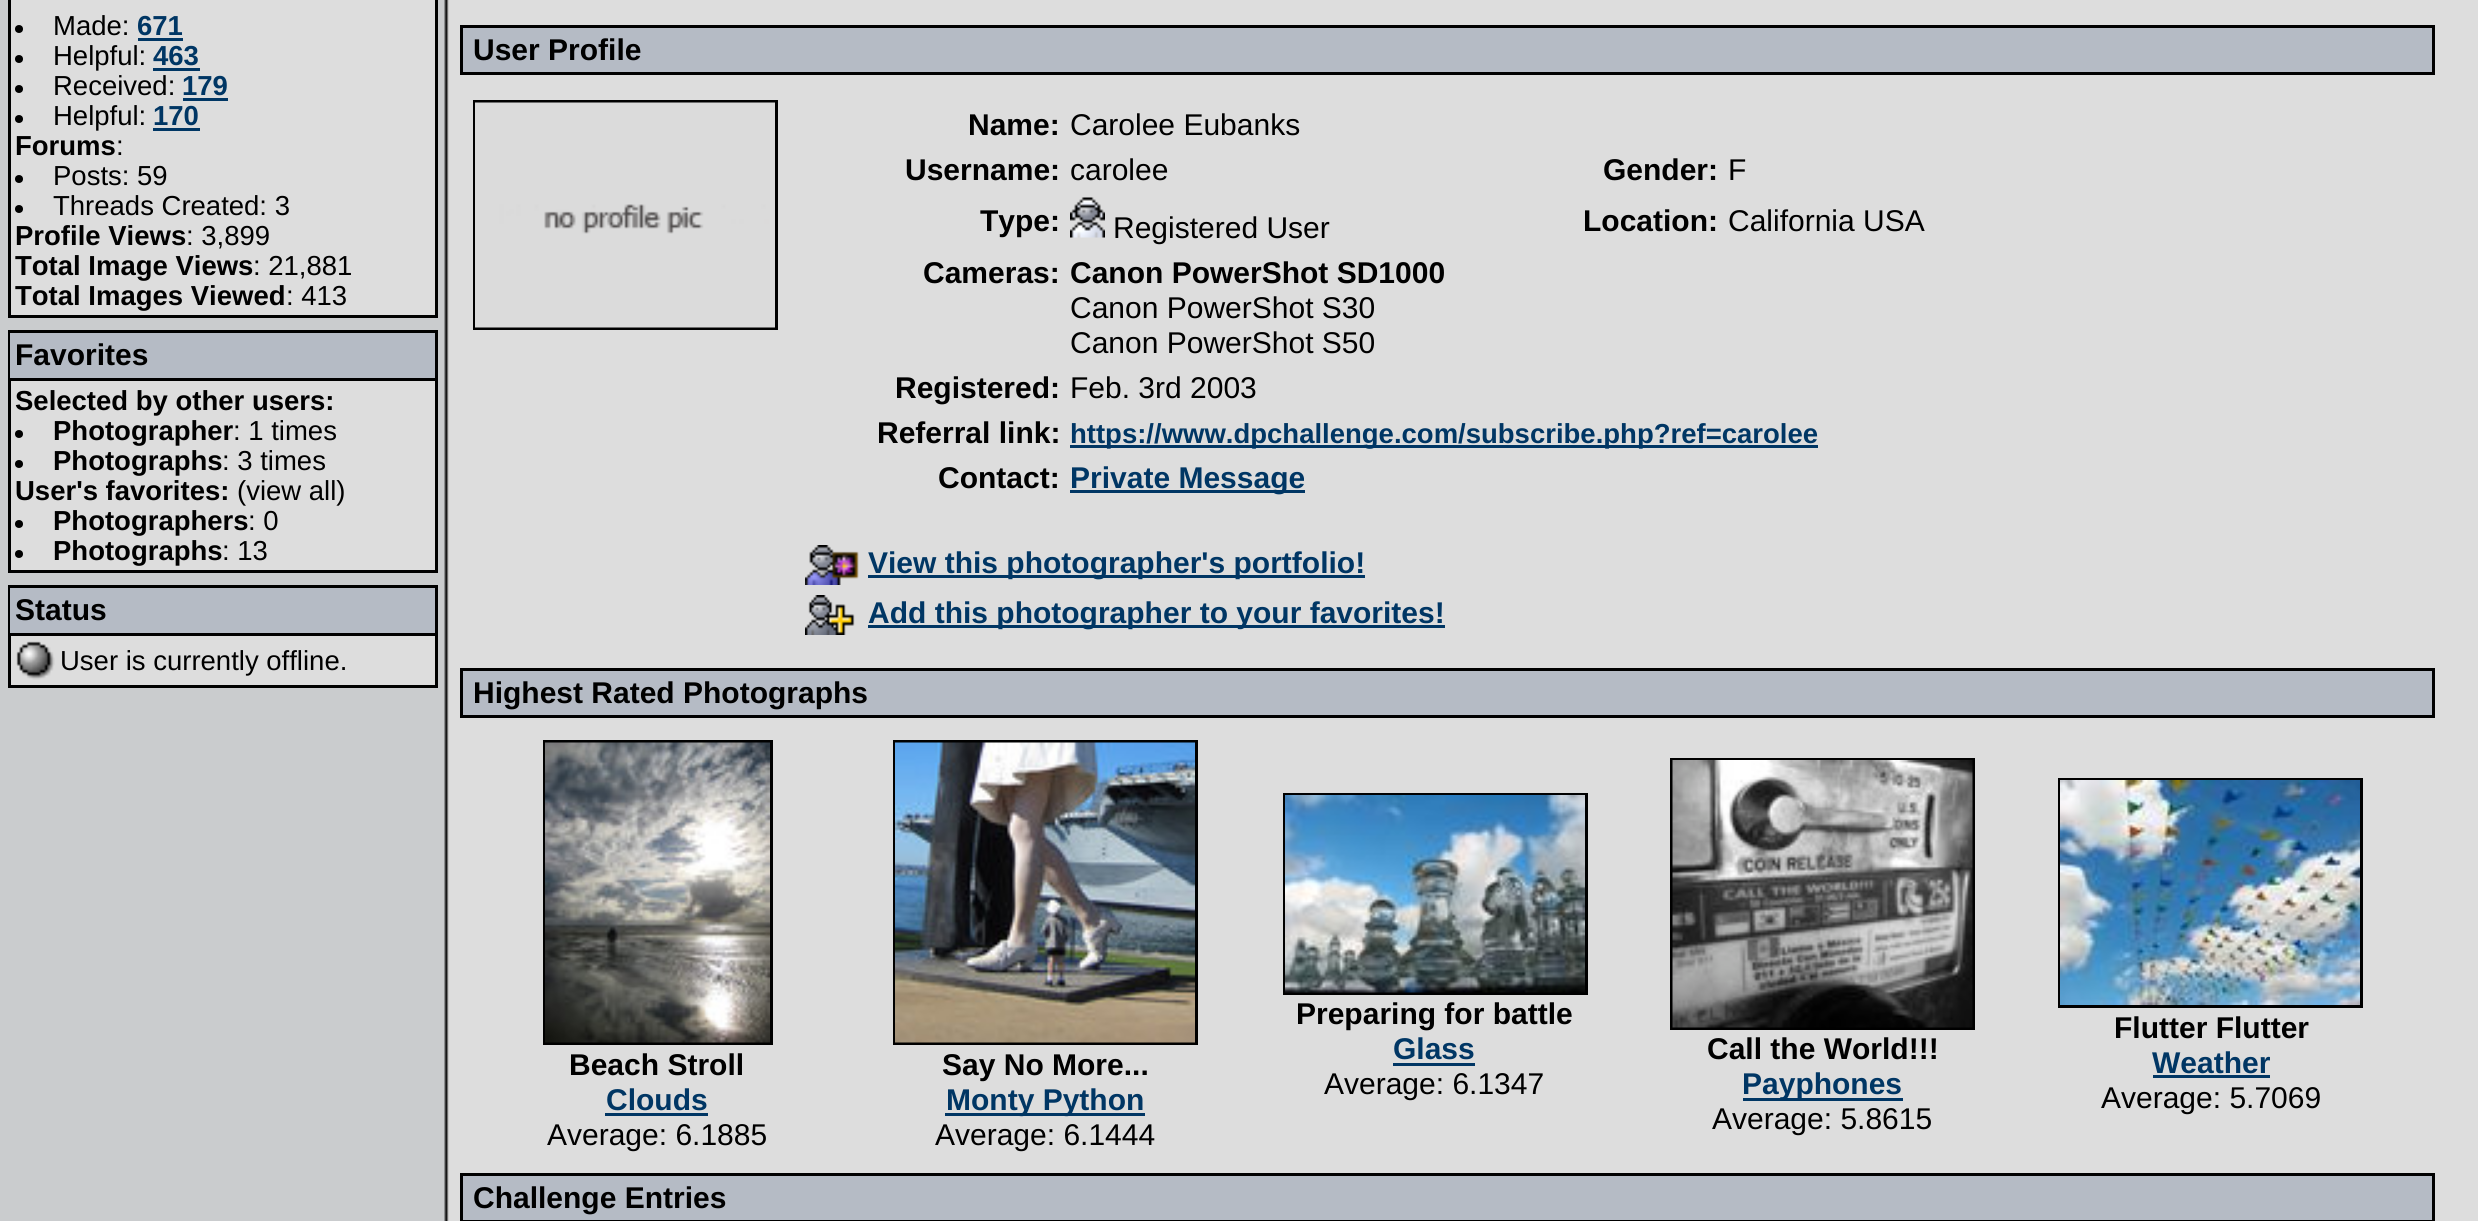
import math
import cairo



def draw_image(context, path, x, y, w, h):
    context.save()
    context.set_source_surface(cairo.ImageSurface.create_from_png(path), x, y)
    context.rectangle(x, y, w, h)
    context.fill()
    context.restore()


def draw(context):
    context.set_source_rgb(221 / 255, 221 / 255, 221 / 255)
    context.paint()
    draw_image(context, "images/1.png", 0, 0, 449, 1221)
    context.set_source_rgb(221 / 255, 221 / 255, 221 / 255)
    context.rectangle(9.5, -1.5, 427, 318)
    context.fill_preserve()
    context.set_source_rgb(0, 0, 0)
    context.set_line_width(3)
    context.stroke()
    context.arc(19, 29, 4, 0, 2 * math.pi)
    context.fill()
    context.set_source_rgb(0, 54 / 255, 100 / 255)
    context.rectangle(138, 38, 45, 3)
    context.fill()
    context.set_source_rgb(0, 0, 0)
    context.arc(19, 59, 4, 0, 2 * math.pi)
    context.fill()
    context.set_source_rgb(0, 54 / 255, 100 / 255)
    context.rectangle(153, 68, 47, 3)
    context.fill()
    context.set_source_rgb(0, 0, 0)
    context.arc(19, 89, 4, 0, 2 * math.pi)
    context.fill()
    context.set_source_rgb(0, 54 / 255, 100 / 255)
    context.rectangle(183, 98, 45, 3)
    context.fill()
    context.set_source_rgb(0, 0, 0)
    context.arc(19, 119, 4, 0, 2 * math.pi)
    context.fill()
    context.set_source_rgb(0, 54 / 255, 100 / 255)
    context.rectangle(153, 128, 47, 3)
    context.fill()
    context.set_source_rgb(0, 0, 0)
    context.arc(19, 179, 4, 0, 2 * math.pi)
    context.fill()
    context.arc(19, 209, 4, 0, 2 * math.pi)
    context.fill()
    context.set_source_rgb(221 / 255, 221 / 255, 221 / 255)
    context.rectangle(11, 381, 424, 189)
    context.fill()
    context.rectangle(9.5, 331.5, 427, 240)
    context.set_source_rgb(0, 0, 0)
    context.stroke()
    context.set_source_rgb(181 / 255, 187 / 255, 197 / 255)
    context.rectangle(10, 333, 425, 45)
    context.fill()
    context.set_source_rgb(0, 0, 0)
    context.rectangle(10, 378, 425, 3)
    context.fill()
    context.arc(19, 434, 4, 0, 2 * math.pi)
    context.fill()
    context.arc(19, 464, 4, 0, 2 * math.pi)
    context.fill()
    context.arc(19, 524, 4, 0, 2 * math.pi)
    context.fill()
    context.arc(19, 554, 4, 0, 2 * math.pi)
    context.fill()
    context.set_source_rgb(221 / 255, 221 / 255, 221 / 255)
    context.rectangle(11, 636, 424, 49)
    context.fill()
    context.rectangle(9.5, 586.5, 427, 100)
    context.set_source_rgb(0, 0, 0)
    context.stroke()
    context.set_source_rgb(181 / 255, 187 / 255, 197 / 255)
    context.rectangle(10, 588, 425, 45)
    context.fill()
    context.set_source_rgb(0, 0, 0)
    context.rectangle(10, 633, 425, 3)
    context.fill()
    draw_image(context, "images/2.png", 16, 641, 39, 39)
    context.set_source_rgb(181 / 255, 187 / 255, 197 / 255)
    context.rectangle(461.5, 26.5, 1972, 47)
    context.fill_preserve()
    context.set_source_rgb(0, 0, 0)
    context.stroke()
    context.rectangle(474.5, 101.5, 302, 227)
    context.stroke()
    draw_image(context, "images/3.png", 475, 102, 300, 226)
    draw_image(context, "images/4.png", 1070, 197, 35, 41)
    context.set_source_rgb(0, 54 / 255, 100 / 255)
    context.rectangle(1070, 445, 748, 3)
    context.fill()
    context.rectangle(1070, 490, 235, 3)
    context.fill()
    draw_image(context, "images/5.png", 805, 545, 54, 40)
    context.rectangle(868, 575, 497, 3)
    context.fill()
    draw_image(context, "images/6.png", 805, 595, 50, 40)
    context.rectangle(868, 625, 577, 3)
    context.fill()
    context.set_source_rgb(181 / 255, 187 / 255, 197 / 255)
    context.rectangle(461.5, 669.5, 1972, 47)
    context.fill_preserve()
    context.set_source_rgb(0, 0, 0)
    context.stroke()
    context.rectangle(544.5, 741.5, 227, 302)
    context.stroke()
    draw_image(context, "images/7.png", 545, 742, 225, 301)
    context.set_source_rgb(0, 54 / 255, 100 / 255)
    context.rectangle(605, 1113, 103, 3)
    context.fill()
    context.rectangle(894.5, 741.5, 302, 302)
    context.set_source_rgb(0, 0, 0)
    context.stroke()
    draw_image(context, "images/8.png", 895, 742, 300, 301)
    context.set_source_rgb(0, 54 / 255, 100 / 255)
    context.rectangle(945, 1113, 200, 3)
    context.fill()
    context.rectangle(1284.5, 794.5, 302, 199)
    context.set_source_rgb(0, 0, 0)
    context.stroke()
    draw_image(context, "images/9.png", 1285, 795, 300, 198)
    context.set_source_rgb(0, 54 / 255, 100 / 255)
    context.rectangle(1393, 1063, 82, 3)
    context.fill()
    context.rectangle(1671.5, 759.5, 302, 269)
    context.set_source_rgb(0, 0, 0)
    context.stroke()
    draw_image(context, "images/10.png", 1672, 760, 301, 268)
    context.set_source_rgb(0, 54 / 255, 100 / 255)
    context.rectangle(1743, 1098, 160, 3)
    context.fill()
    context.rectangle(2059.5, 779.5, 302, 227)
    context.set_source_rgb(0, 0, 0)
    context.stroke()
    draw_image(context, "images/11.png", 2060, 780, 300, 225)
    context.set_source_rgb(0, 54 / 255, 100 / 255)
    context.rectangle(2153, 1075, 117, 3)
    context.fill()
    context.set_source_rgb(181 / 255, 187 / 255, 197 / 255)
    context.rectangle(461.5, 1174.5, 1972, 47)
    context.fill_preserve()
    context.set_source_rgb(0, 0, 0)
    context.stroke()
    context.select_font_face("Liberation Sans")
    context.set_font_size(27.5)
    context.move_to(53, 35)
    context.show_text("Made:")
    context.select_font_face("Liberation Sans", cairo.FontSlant.NORMAL, cairo.FontWeight.BOLD)
    context.set_source_rgb(0, 54 / 255, 100 / 255)
    context.move_to(137, 35)
    context.show_text("671")
    context.select_font_face("Liberation Sans")
    context.set_source_rgb(0, 0, 0)
    context.move_to(53, 65)
    context.show_text("Helpful:")
    context.select_font_face("Liberation Sans", cairo.FontSlant.NORMAL, cairo.FontWeight.BOLD)
    context.set_source_rgb(0, 54 / 255, 100 / 255)
    context.move_to(153, 65)
    context.show_text("463")
    context.select_font_face("Liberation Sans")
    context.set_source_rgb(0, 0, 0)
    context.move_to(53, 95)
    context.show_text("Received:")
    context.select_font_face("Liberation Sans", cairo.FontSlant.NORMAL, cairo.FontWeight.BOLD)
    context.set_source_rgb(0, 54 / 255, 100 / 255)
    context.move_to(182, 95)
    context.show_text("179")
    context.select_font_face("Liberation Sans")
    context.set_source_rgb(0, 0, 0)
    context.move_to(53, 125)
    context.show_text("Helpful:")
    context.select_font_face("Liberation Sans", cairo.FontSlant.NORMAL, cairo.FontWeight.BOLD)
    context.set_source_rgb(0, 54 / 255, 100 / 255)
    context.move_to(153, 125)
    context.show_text("170")
    context.set_source_rgb(0, 0, 0)
    context.move_to(15, 155)
    context.show_text("Forums")
    context.select_font_face("Liberation Sans")
    context.move_to(116, 155)
    context.show_text(":")
    context.move_to(53, 185)
    context.show_text("Posts: 59")
    context.move_to(53, 215)
    context.show_text("Threads Created: 3")
    context.select_font_face("Liberation Sans", cairo.FontSlant.NORMAL, cairo.FontWeight.BOLD)
    context.move_to(15, 245)
    context.show_text("Profile Views")
    context.select_font_face("Liberation Sans")
    context.move_to(186, 245)
    context.show_text(": 3,899")
    context.select_font_face("Liberation Sans", cairo.FontSlant.NORMAL, cairo.FontWeight.BOLD)
    context.move_to(15, 275)
    context.show_text("Total Image Views")
    context.select_font_face("Liberation Sans")
    context.move_to(253, 275)
    context.show_text(": 21,881")
    context.select_font_face("Liberation Sans", cairo.FontSlant.NORMAL, cairo.FontWeight.BOLD)
    context.move_to(15, 305)
    context.show_text("Total Images Viewed")
    context.select_font_face("Liberation Sans")
    context.move_to(286, 305)
    context.show_text(": 413")
    context.select_font_face("Liberation Sans", cairo.FontSlant.NORMAL, cairo.FontWeight.BOLD)
    context.set_font_size(30)
    context.move_to(15, 365)
    context.show_text("Favorites")
    context.set_font_size(27.5)
    context.move_to(15, 410)
    context.show_text("Selected by other users:")
    context.move_to(53, 440)
    context.show_text("Photographer")
    context.select_font_face("Liberation Sans")
    context.move_to(233, 440)
    context.show_text(": 1 times")
    context.select_font_face("Liberation Sans", cairo.FontSlant.NORMAL, cairo.FontWeight.BOLD)
    context.move_to(53, 470)
    context.show_text("Photographs")
    context.select_font_face("Liberation Sans")
    context.move_to(222, 470)
    context.show_text(": 3 times")
    context.select_font_face("Liberation Sans", cairo.FontSlant.NORMAL, cairo.FontWeight.BOLD)
    context.move_to(15, 500)
    context.show_text("User's favorites:")
    context.select_font_face("Liberation Sans")
    context.move_to(237, 500)
    context.show_text("(view all)")
    context.select_font_face("Liberation Sans", cairo.FontSlant.NORMAL, cairo.FontWeight.BOLD)
    context.move_to(53, 530)
    context.show_text("Photographers")
    context.select_font_face("Liberation Sans")
    context.move_to(248, 530)
    context.show_text(": 0")
    context.select_font_face("Liberation Sans", cairo.FontSlant.NORMAL, cairo.FontWeight.BOLD)
    context.move_to(53, 560)
    context.show_text("Photographs")
    context.select_font_face("Liberation Sans")
    context.move_to(222, 560)
    context.show_text(": 13")
    context.select_font_face("Liberation Sans", cairo.FontSlant.NORMAL, cairo.FontWeight.BOLD)
    context.set_font_size(30)
    context.move_to(15, 620)
    context.show_text("Status")
    context.select_font_face("Liberation Sans")
    context.set_font_size(27.5)
    context.move_to(60, 670)
    context.show_text("User is currently offline.")
    context.select_font_face("Liberation Sans", cairo.FontSlant.NORMAL, cairo.FontWeight.BOLD)
    context.set_font_size(30)
    context.move_to(473, 60)
    context.show_text("User Profile")
    context.move_to(968, 135)
    context.show_text("Name:")
    context.select_font_face("Liberation Sans")
    context.move_to(1070, 135)
    context.show_text("Carolee Eubanks")
    context.select_font_face("Liberation Sans", cairo.FontSlant.NORMAL, cairo.FontWeight.BOLD)
    context.move_to(905, 180)
    context.show_text("Username:")
    context.select_font_face("Liberation Sans")
    context.move_to(1070, 180)
    context.show_text("carolee")
    context.select_font_face("Liberation Sans", cairo.FontSlant.NORMAL, cairo.FontWeight.BOLD)
    context.move_to(1603, 180)
    context.show_text("Gender:")
    context.select_font_face("Liberation Sans")
    context.move_to(1728, 180)
    context.show_text("F")
    context.select_font_face("Liberation Sans", cairo.FontSlant.NORMAL, cairo.FontWeight.BOLD)
    context.move_to(980, 231)
    context.show_text("Type:")
    context.select_font_face("Liberation Sans")
    context.move_to(1113, 238)
    context.show_text("Registered User")
    context.select_font_face("Liberation Sans", cairo.FontSlant.NORMAL, cairo.FontWeight.BOLD)
    context.move_to(1583, 231)
    context.show_text("Location:")
    context.select_font_face("Liberation Sans")
    context.move_to(1728, 231)
    context.show_text("California USA")
    context.select_font_face("Liberation Sans", cairo.FontSlant.NORMAL, cairo.FontWeight.BOLD)
    context.move_to(923, 283)
    context.show_text("Cameras:")
    context.move_to(1070, 283)
    context.show_text("Canon PowerShot SD1000")
    context.select_font_face("Liberation Sans")
    context.move_to(1070, 318)
    context.show_text("Canon PowerShot S30")
    context.move_to(1070, 353)
    context.show_text("Canon PowerShot S50")
    context.select_font_face("Liberation Sans", cairo.FontSlant.NORMAL, cairo.FontWeight.BOLD)
    context.move_to(895, 398)
    context.show_text("Registered:")
    context.select_font_face("Liberation Sans")
    context.move_to(1070, 398)
    context.show_text("Feb. 3rd 2003")
    context.select_font_face("Liberation Sans", cairo.FontSlant.NORMAL, cairo.FontWeight.BOLD)
    context.move_to(877, 443)
    context.show_text("Referral link:")
    context.set_font_size(27.5)
    context.set_source_rgb(0, 54 / 255, 100 / 255)
    context.move_to(1070, 443)
    context.show_text("https://www.dpchallenge.com/subscribe.php?ref=carolee")
    context.set_font_size(30)
    context.set_source_rgb(0, 0, 0)
    context.move_to(938, 488)
    context.show_text("Contact:")
    context.set_source_rgb(0, 54 / 255, 100 / 255)
    context.move_to(1070, 488)
    context.show_text("Private Message")
    context.move_to(868, 573)
    context.show_text("View this photographer's portfolio!")
    context.move_to(868, 623)
    context.show_text("Add this photographer to your favorites!")
    context.set_source_rgb(0, 0, 0)
    context.move_to(473, 703)
    context.show_text("Highest Rated Photographs")
    context.move_to(569, 1075)
    context.show_text("Beach Stroll")
    context.set_source_rgb(0, 54 / 255, 100 / 255)
    context.move_to(606, 1110)
    context.show_text("Clouds")
    context.select_font_face("Liberation Sans")
    context.set_source_rgb(0, 0, 0)
    context.move_to(547, 1145)
    context.show_text("Average: 6.1885")
    context.select_font_face("Liberation Sans", cairo.FontSlant.NORMAL, cairo.FontWeight.BOLD)
    context.move_to(942, 1075)
    context.show_text("Say No More...")
    context.set_source_rgb(0, 54 / 255, 100 / 255)
    context.move_to(946, 1110)
    context.show_text("Monty Python")
    context.select_font_face("Liberation Sans")
    context.set_source_rgb(0, 0, 0)
    context.move_to(935, 1145)
    context.show_text("Average: 6.1444")
    context.select_font_face("Liberation Sans", cairo.FontSlant.NORMAL, cairo.FontWeight.BOLD)
    context.move_to(1296, 1024)
    context.show_text("Preparing for battle")
    context.set_source_rgb(0, 54 / 255, 100 / 255)
    context.move_to(1393, 1059)
    context.show_text("Glass")
    context.select_font_face("Liberation Sans")
    context.set_source_rgb(0, 0, 0)
    context.move_to(1324, 1094)
    context.show_text("Average: 6.1347")
    context.select_font_face("Liberation Sans", cairo.FontSlant.NORMAL, cairo.FontWeight.BOLD)
    context.move_to(1707, 1059)
    context.show_text("Call the World!!!")
    context.set_source_rgb(0, 54 / 255, 100 / 255)
    context.move_to(1742, 1094)
    context.show_text("Payphones")
    context.select_font_face("Liberation Sans")
    context.set_source_rgb(0, 0, 0)
    context.move_to(1712, 1129)
    context.show_text("Average: 5.8615")
    context.select_font_face("Liberation Sans", cairo.FontSlant.NORMAL, cairo.FontWeight.BOLD)
    context.move_to(2114, 1038)
    context.show_text("Flutter Flutter")
    context.set_source_rgb(0, 54 / 255, 100 / 255)
    context.move_to(2152, 1073)
    context.show_text("Weather")
    context.select_font_face("Liberation Sans")
    context.set_source_rgb(0, 0, 0)
    context.move_to(2101, 1108)
    context.show_text("Average: 5.7069")
    context.select_font_face("Liberation Sans", cairo.FontSlant.NORMAL, cairo.FontWeight.BOLD)
    context.move_to(473, 1208)
    context.show_text("Challenge Entries")


surface = cairo.ImageSurface(cairo.Format.RGB24, 2478, 1221)
context = cairo.Context(surface)
options = cairo.FontOptions()
options.set_hint_metrics(cairo.HintMetrics.OFF)
options.set_hint_style(cairo.HintStyle.NONE)
context.set_font_options(options)
context.set_miter_limit(4)
draw(context)
surface.write_to_png("out.png")
